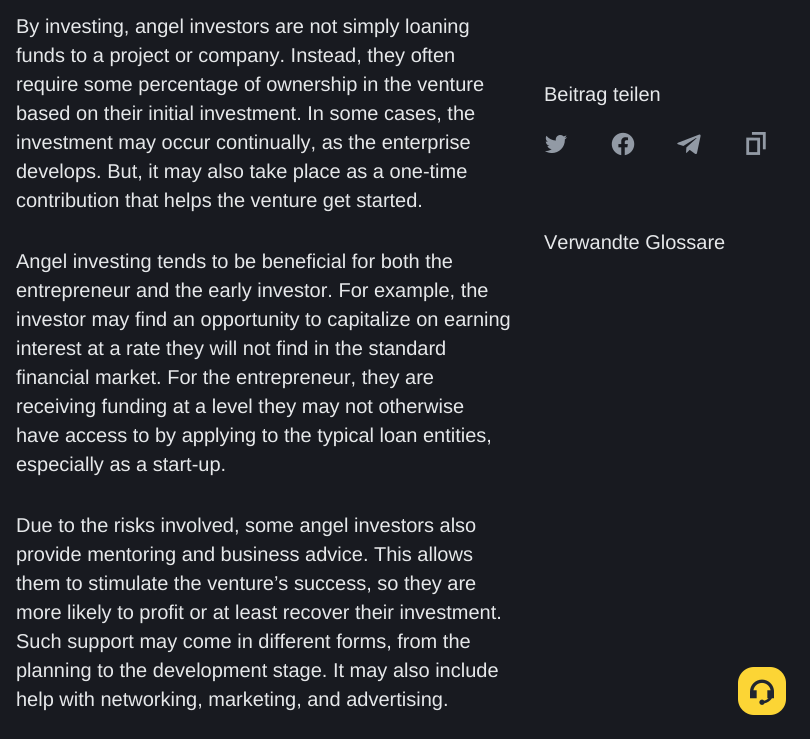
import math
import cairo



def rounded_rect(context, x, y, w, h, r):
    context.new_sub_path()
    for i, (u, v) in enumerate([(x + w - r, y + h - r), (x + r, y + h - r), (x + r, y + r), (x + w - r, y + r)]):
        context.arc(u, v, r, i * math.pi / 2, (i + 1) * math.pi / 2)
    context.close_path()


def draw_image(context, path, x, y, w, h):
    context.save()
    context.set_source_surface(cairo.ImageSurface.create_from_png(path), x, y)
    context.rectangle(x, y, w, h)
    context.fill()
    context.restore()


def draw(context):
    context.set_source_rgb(24 / 255, 26 / 255, 32 / 255)
    context.paint()
    draw_image(context, "images/1.png", 545, 135, 22, 18)
    draw_image(context, "images/2.png", 611, 132, 24, 24)
    draw_image(context, "images/3.png", 677, 134, 24, 20)
    draw_image(context, "images/4.png", 746, 132, 20, 23)
    context.set_source_rgb(252 / 255, 213 / 255, 53 / 255)
    rounded_rect(context, 738, 667, 48, 48, 16)
    context.fill()
    draw_image(context, "images/5.png", 750, 679, 24, 26)
    context.select_font_face("Liberation Sans")
    context.set_font_size(20)
    context.set_source_rgb(230 / 255, 232 / 255, 234 / 255)
    context.move_to(16, 33)
    context.show_text("By investing, angel investors are not simply loaning")
    context.move_to(16, 62)
    context.show_text("funds to a project or company. Instead, they often")
    context.move_to(16, 91)
    context.show_text("require some percentage of ownership in the venture")
    context.move_to(16, 120)
    context.show_text("based on their initial investment. In some cases, the")
    context.move_to(16, 149)
    context.show_text("investment may occur continually, as the enterprise")
    context.move_to(16, 178)
    context.show_text("develops. But, it may also take place as a one-time")
    context.move_to(16, 207)
    context.show_text("contribution that helps the venture get started.")
    context.move_to(16, 268)
    context.show_text("Angel investing tends to be beneficial for both the")
    context.move_to(16, 297)
    context.show_text("entrepreneur and the early investor. For example, the")
    context.move_to(16, 326)
    context.show_text("investor may find an opportunity to capitalize on earning")
    context.move_to(16, 355)
    context.show_text("interest at a rate they will not find in the standard")
    context.move_to(16, 384)
    context.show_text("financial market. For the entrepreneur, they are")
    context.move_to(16, 413)
    context.show_text("receiving funding at a level they may not otherwise")
    context.move_to(16, 442)
    context.show_text("have access to by applying to the typical loan entities,")
    context.move_to(16, 471)
    context.show_text("especially as a start-up.")
    context.move_to(16, 532)
    context.show_text("Due to the risks involved, some angel investors also")
    context.move_to(16, 561)
    context.show_text("provide mentoring and business advice. This allows")
    context.move_to(16, 590)
    context.show_text("them to stimulate the venture’s success, so they are")
    context.move_to(16, 619)
    context.show_text("more likely to profit or at least recover their investment.")
    context.move_to(16, 648)
    context.show_text("Such support may come in different forms, from the")
    context.move_to(16, 677)
    context.show_text("planning to the development stage. It may also include")
    context.move_to(16, 706)
    context.show_text("help with networking, marketing, and advertising.")
    context.move_to(544, 101)
    context.show_text("Beitrag teilen")
    context.move_to(544, 249)
    context.show_text("Verwandte Glossare")


surface = cairo.ImageSurface(cairo.Format.RGB24, 810, 739)
context = cairo.Context(surface)
options = cairo.FontOptions()
options.set_hint_metrics(cairo.HintMetrics.OFF)
options.set_hint_style(cairo.HintStyle.NONE)
context.set_font_options(options)
context.set_miter_limit(4)
draw(context)
surface.write_to_png("out.png")
